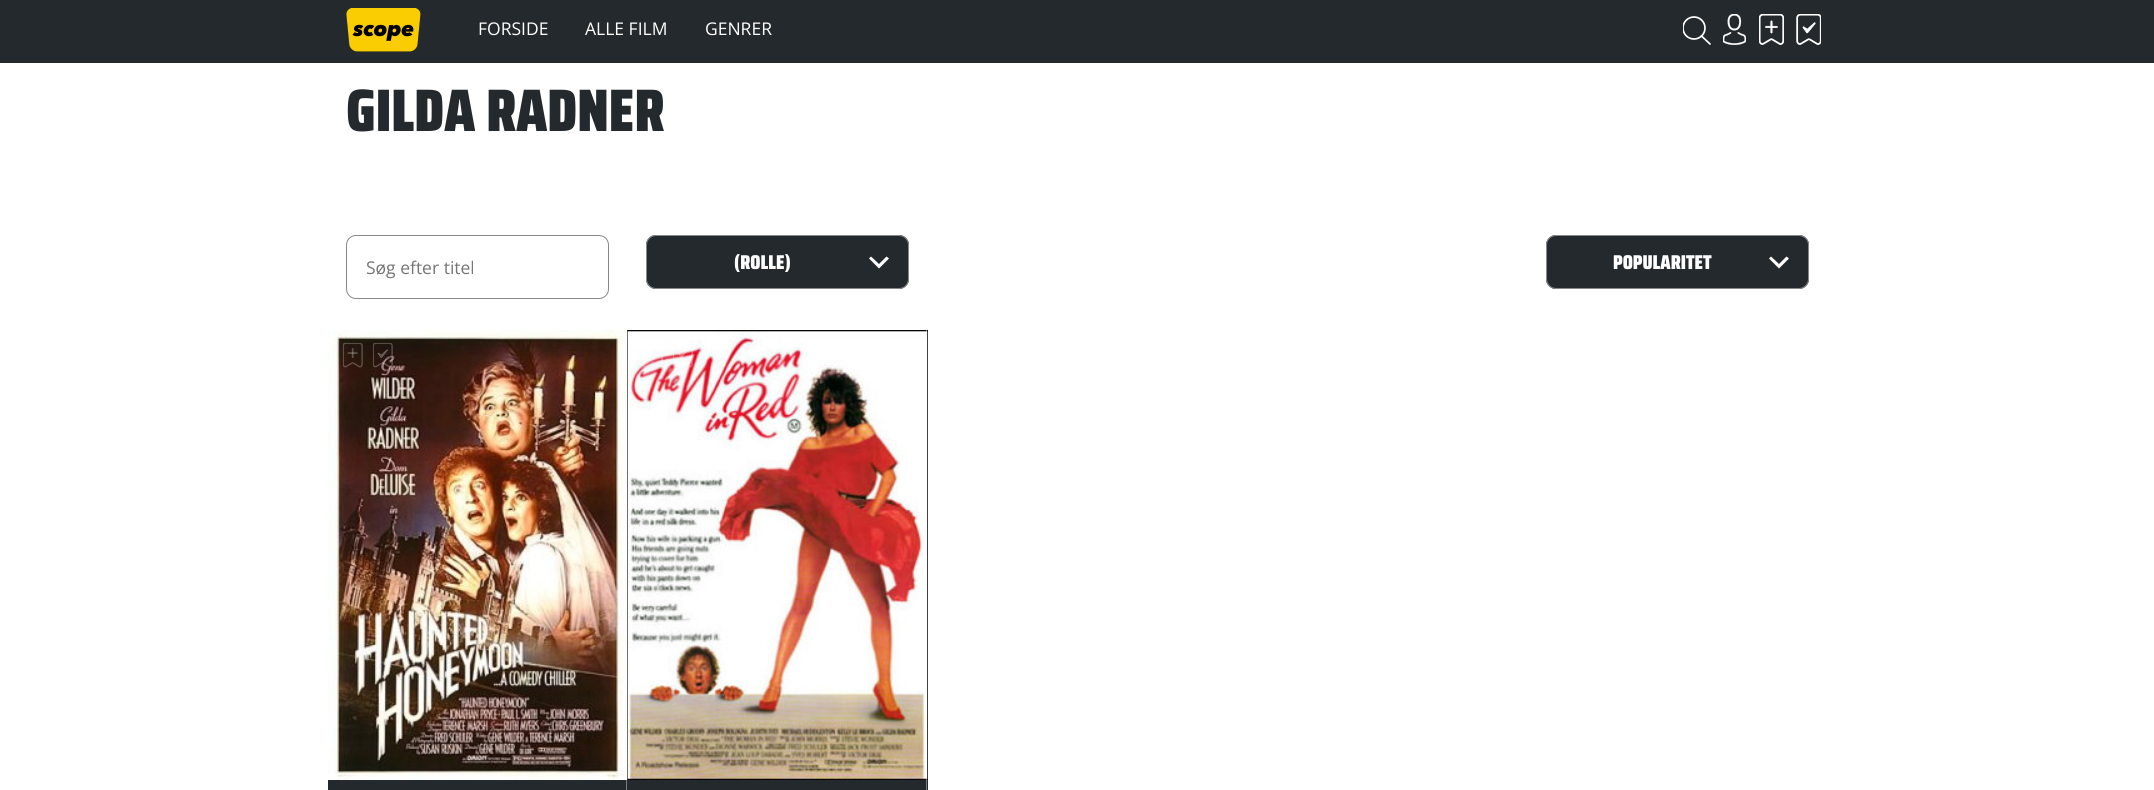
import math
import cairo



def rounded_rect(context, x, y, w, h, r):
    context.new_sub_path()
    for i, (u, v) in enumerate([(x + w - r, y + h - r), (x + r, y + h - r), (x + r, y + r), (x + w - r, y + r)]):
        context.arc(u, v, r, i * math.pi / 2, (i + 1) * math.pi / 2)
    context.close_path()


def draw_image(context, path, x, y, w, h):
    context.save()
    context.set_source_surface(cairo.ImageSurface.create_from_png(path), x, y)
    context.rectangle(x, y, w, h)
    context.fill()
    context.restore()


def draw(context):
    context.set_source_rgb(1, 1, 1)
    context.paint()
    context.set_source_rgb(36 / 255, 41 / 255, 45 / 255)
    context.rectangle(0, 0, 2154, 63)
    context.fill()
    draw_image(context, "images/1.png", 346, 8, 75, 44)
    context.save()
    context.rectangle(1683, 16, 28, 29)
    context.clip()
    context.arc(1694, 28, 11, 0, 2 * math.pi)
    context.set_source_rgb(1, 1, 1)
    context.set_line_width(1.7)
    context.stroke()
    context.restore()
    context.new_path()
    context.move_to(1701.5, 36)
    context.line_to(1710, 44)
    context.set_source_rgb(1, 1, 1)
    context.set_line_width(1.7)
    context.set_line_cap(cairo.LineCap.ROUND)
    context.stroke()
    draw_image(context, "images/2.png", 1723, 14, 23, 31)
    draw_image(context, "images/3.png", 1759, 14, 25, 31)
    draw_image(context, "images/4.png", 1796, 14, 25, 31)
    rounded_rect(context, 346.5, 235.5, 262, 63, 9.5)
    context.set_source_rgb(136 / 255, 136 / 255, 136 / 255)
    context.set_line_width(1)
    context.set_line_cap(cairo.LineCap.BUTT)
    context.stroke()
    context.set_source_rgb(36 / 255, 41 / 255, 46 / 255)
    rounded_rect(context, 646, 235, 263, 54, 10)
    context.fill()
    context.set_source_rgb(1, 1, 1)
    context.new_path()
    context.move_to(871, 256.5)
    context.line_to(879, 264)
    context.line_to(886.5, 256.5)
    context.line_to(889, 258.5)
    context.line_to(879, 268.5)
    context.line_to(869, 258.5)
    context.close_path()
    context.fill()
    rounded_rect(context, 646.5, 235.5, 262, 53, 9.5)
    context.set_source_rgb(136 / 255, 136 / 255, 136 / 255)
    context.stroke()
    context.set_source_rgb(36 / 255, 41 / 255, 46 / 255)
    rounded_rect(context, 1546, 235, 263, 54, 10)
    context.fill()
    context.set_source_rgb(1, 1, 1)
    context.new_path()
    context.move_to(1771, 256.5)
    context.line_to(1779, 264)
    context.line_to(1786.5, 256.5)
    context.line_to(1789, 258.5)
    context.line_to(1779, 268.5)
    context.line_to(1769, 258.5)
    context.close_path()
    context.fill()
    rounded_rect(context, 1546.5, 235.5, 262, 53, 9.5)
    context.set_source_rgb(136 / 255, 136 / 255, 136 / 255)
    context.stroke()
    context.set_source_rgb(0, 0, 0)
    context.rectangle(627, 330, 1, 450)
    context.fill()
    draw_image(context, "images/5.png", 328, 330, 300, 450)
    context.set_source_rgb(36 / 255, 41 / 255, 46 / 255)
    context.rectangle(328, 780, 600, 10)
    context.fill()
    context.set_source_rgba(1, 1, 1, 0.4)
    context.rectangle(626, 330, 1, 460)
    context.fill()
    draw_image(context, "images/6.png", 343, 343, 20, 25)
    draw_image(context, "images/7.png", 373, 343, 20, 25)
    context.set_source_rgb(0, 0, 0)
    context.rectangle(927, 330, 1, 450)
    context.fill()
    draw_image(context, "images/8.png", 627, 330, 301, 450)
    context.set_source_rgba(1, 1, 1, 0.4)
    context.rectangle(926, 330, 1, 460)
    context.fill()
    draw_image(context, "images/9.png", 643, 356, 20, 12)
    draw_image(context, "images/10.png", 673, 350, 20, 18)
    context.select_font_face("Open Sans")
    context.set_font_size(17.5)
    context.set_source_rgb(1, 1, 1)
    context.move_to(478, 35)
    context.show_text("FORSIDE")
    context.move_to(585, 35)
    context.show_text("ALLE FILM")
    context.move_to(705, 35)
    context.show_text("GENRER")
    context.select_font_face("Saira Condensed Black")
    context.set_font_size(60)
    context.set_source_rgb(36 / 255, 41 / 255, 46 / 255)
    context.move_to(346, 131)
    context.show_text("GILDA RADNER")
    context.select_font_face("Open Sans")
    context.set_font_size(17.5)
    context.set_source_rgb(117 / 255, 117 / 255, 117 / 255)
    context.move_to(366, 274)
    context.show_text("Søg efter titel")
    context.select_font_face("Saira Condensed Black")
    context.set_font_size(20)
    context.set_source_rgb(1, 1, 1)
    context.move_to(734, 269)
    context.show_text("(ROLLE)")
    context.move_to(1613, 269)
    context.show_text("POPULARITET")


surface = cairo.ImageSurface(cairo.Format.RGB24, 2154, 790)
context = cairo.Context(surface)
options = cairo.FontOptions()
options.set_hint_metrics(cairo.HintMetrics.OFF)
options.set_hint_style(cairo.HintStyle.NONE)
context.set_font_options(options)
context.set_miter_limit(4)
draw(context)
surface.write_to_png("out.png")
